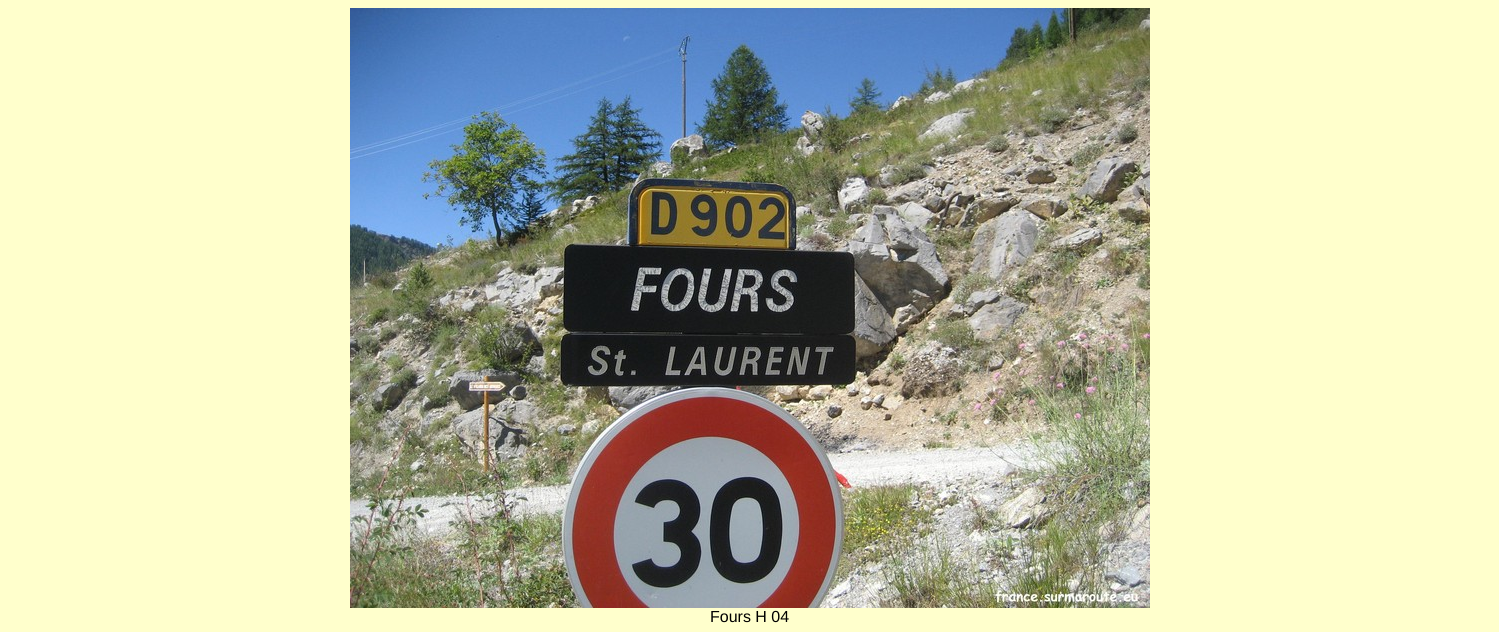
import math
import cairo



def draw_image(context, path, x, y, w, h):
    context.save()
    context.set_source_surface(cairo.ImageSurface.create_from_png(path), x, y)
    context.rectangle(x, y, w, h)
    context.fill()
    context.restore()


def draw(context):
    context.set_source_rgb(1, 1, 204 / 255)
    context.paint()
    draw_image(context, "images/1.png", 350, 8, 800, 600)
    context.select_font_face("Liberation Sans")
    context.set_font_size(16)
    context.set_source_rgb(0, 0, 0)
    context.move_to(710, 622)
    context.show_text("Fours H 04")


surface = cairo.ImageSurface(cairo.Format.RGB24, 1499, 632)
context = cairo.Context(surface)
options = cairo.FontOptions()
options.set_hint_metrics(cairo.HintMetrics.OFF)
options.set_hint_style(cairo.HintStyle.NONE)
context.set_font_options(options)
context.set_miter_limit(4)
draw(context)
surface.write_to_png("out.png")
